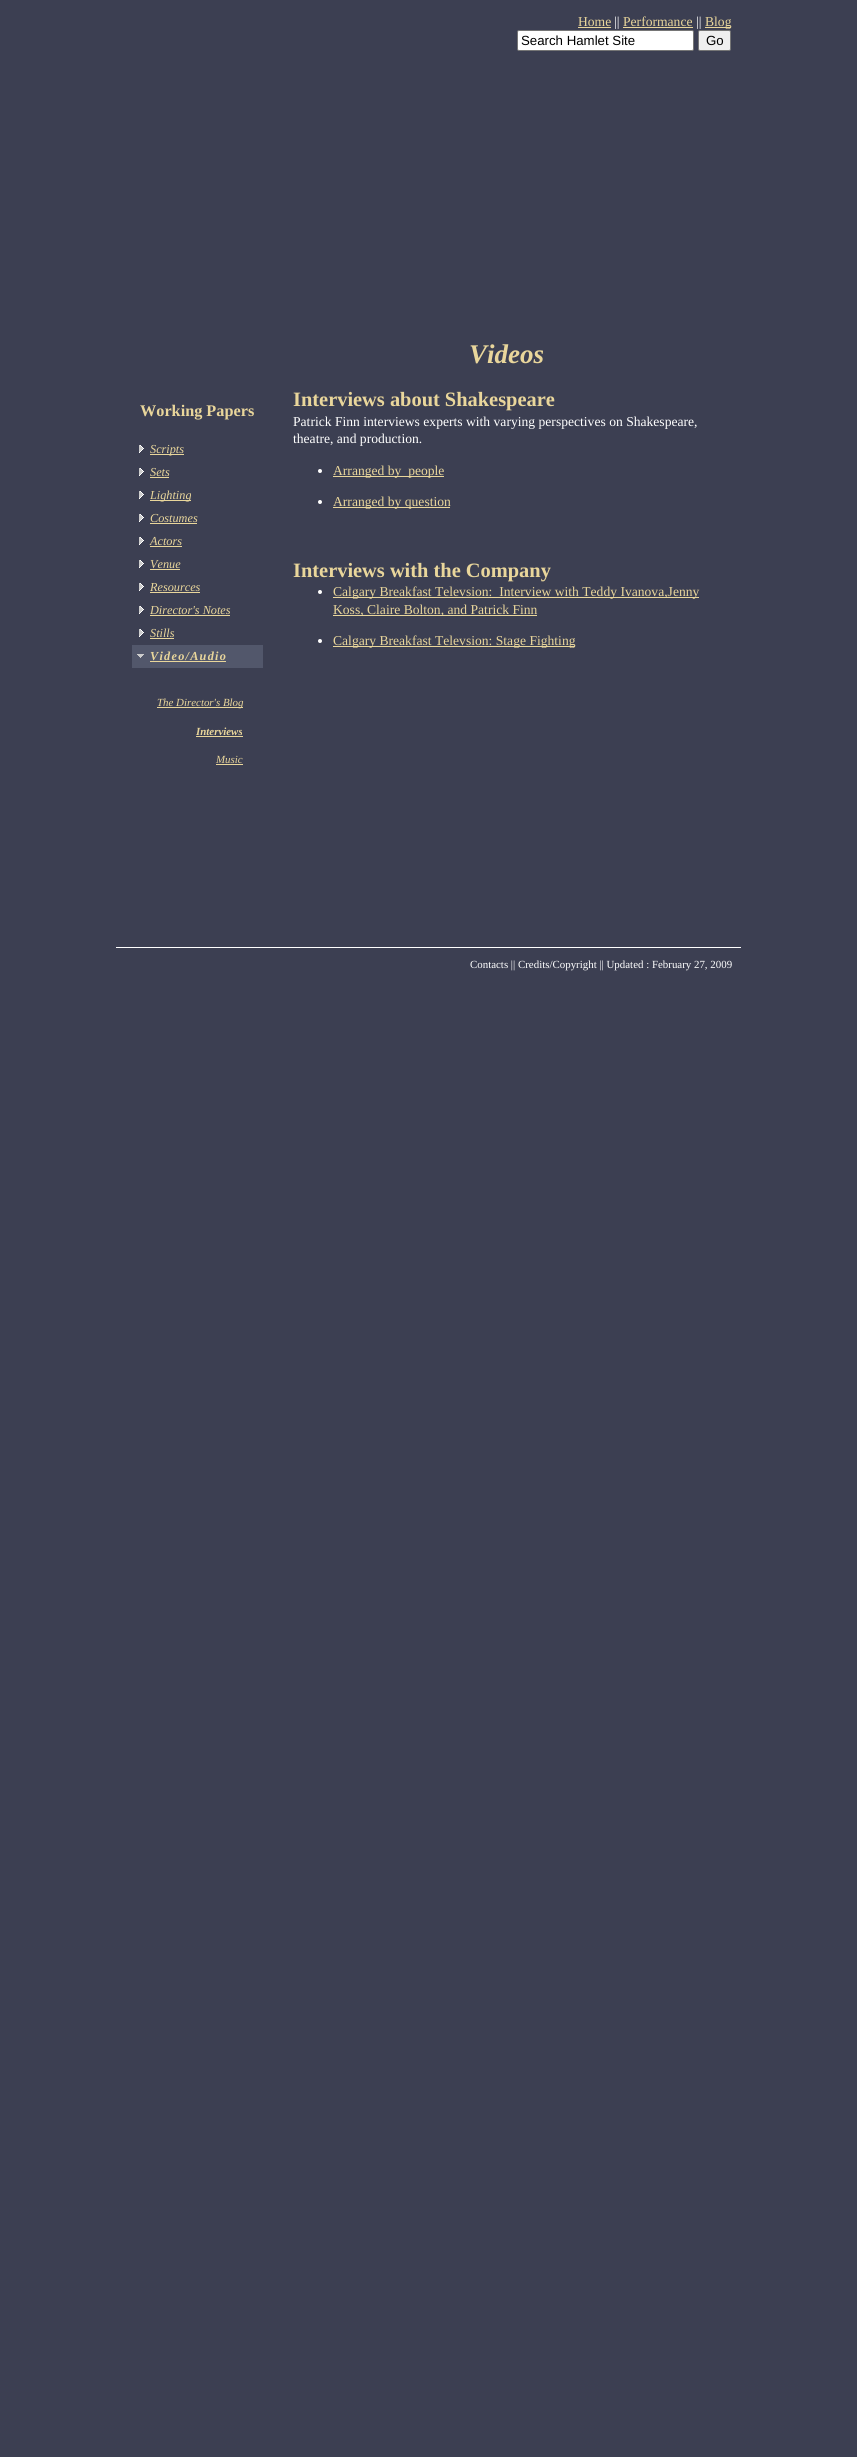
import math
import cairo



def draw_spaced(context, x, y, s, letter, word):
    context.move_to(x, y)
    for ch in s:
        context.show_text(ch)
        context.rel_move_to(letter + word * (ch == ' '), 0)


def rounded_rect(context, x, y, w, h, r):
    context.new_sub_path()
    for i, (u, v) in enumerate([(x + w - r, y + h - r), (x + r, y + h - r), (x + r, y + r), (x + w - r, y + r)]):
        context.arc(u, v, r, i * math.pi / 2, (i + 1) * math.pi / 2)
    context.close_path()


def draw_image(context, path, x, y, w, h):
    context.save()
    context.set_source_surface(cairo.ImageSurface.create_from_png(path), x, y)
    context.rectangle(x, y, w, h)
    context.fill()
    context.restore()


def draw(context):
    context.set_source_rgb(60 / 255, 63 / 255, 82 / 255)
    context.paint()
    context.set_source_rgb(233 / 255, 214 / 255, 155 / 255)
    context.rectangle(578, 27, 33, 1)
    context.fill()
    context.rectangle(623, 27, 70, 1)
    context.fill()
    context.rectangle(705, 27, 26, 1)
    context.fill()
    context.set_source_rgb(1, 1, 1)
    rounded_rect(context, 517.5, 30.5, 176, 20, 1.5)
    context.fill_preserve()
    context.set_source_rgb(118 / 255, 118 / 255, 118 / 255)
    context.set_line_width(1)
    context.stroke()
    context.set_source_rgb(239 / 255, 239 / 255, 239 / 255)
    rounded_rect(context, 698.5, 30.5, 32, 20, 1.5)
    context.fill_preserve()
    context.set_source_rgb(118 / 255, 118 / 255, 118 / 255)
    context.stroke()
    draw_image(context, "images/1.png", 139, 445, 5, 8)
    context.set_source_rgb(233 / 255, 214 / 255, 155 / 255)
    context.rectangle(150, 454, 34, 1)
    context.fill()
    draw_image(context, "images/1.png", 139, 468, 5, 8)
    context.rectangle(150, 477, 19, 1)
    context.fill()
    draw_image(context, "images/1.png", 139, 491, 5, 8)
    context.rectangle(150, 500, 41, 1)
    context.fill()
    draw_image(context, "images/1.png", 139, 514, 5, 8)
    context.rectangle(150, 523, 47, 1)
    context.fill()
    draw_image(context, "images/1.png", 139, 537, 5, 8)
    context.rectangle(150, 546, 32, 1)
    context.fill()
    draw_image(context, "images/1.png", 139, 560, 5, 8)
    context.rectangle(150, 569, 30, 1)
    context.fill()
    draw_image(context, "images/1.png", 139, 583, 5, 8)
    context.rectangle(150, 592, 50, 1)
    context.fill()
    draw_image(context, "images/1.png", 139, 606, 5, 8)
    context.rectangle(150, 615, 80, 1)
    context.fill()
    draw_image(context, "images/1.png", 139, 629, 5, 8)
    context.rectangle(150, 638, 24, 1)
    context.fill()
    context.set_source_rgb(82 / 255, 87 / 255, 107 / 255)
    context.rectangle(132, 645, 131, 23)
    context.fill()
    draw_image(context, "images/2.png", 137, 654, 7, 4)
    context.set_source_rgb(233 / 255, 214 / 255, 155 / 255)
    context.rectangle(150, 661, 76, 1)
    context.fill()
    context.rectangle(157, 707, 86, 1)
    context.fill()
    context.rectangle(196, 736, 47, 1)
    context.fill()
    context.rectangle(216, 764, 27, 1)
    context.fill()
    context.set_source_rgb(1, 1, 1)
    context.arc(320, 471, 2, 0, 2 * math.pi)
    context.fill()
    context.set_source_rgb(233 / 255, 214 / 255, 155 / 255)
    context.rectangle(333, 476, 111, 1)
    context.fill()
    context.set_source_rgb(1, 1, 1)
    context.arc(320, 502, 2, 0, 2 * math.pi)
    context.fill()
    context.set_source_rgb(233 / 255, 214 / 255, 155 / 255)
    context.rectangle(333, 507, 117, 1)
    context.fill()
    context.set_source_rgb(1, 1, 1)
    context.arc(320, 592, 2, 0, 2 * math.pi)
    context.fill()
    context.set_source_rgb(233 / 255, 214 / 255, 155 / 255)
    context.rectangle(333, 597, 366, 1)
    context.fill()
    context.rectangle(333, 615, 204, 1)
    context.fill()
    context.set_source_rgb(1, 1, 1)
    context.arc(320, 641, 2, 0, 2 * math.pi)
    context.fill()
    context.set_source_rgb(233 / 255, 214 / 255, 155 / 255)
    context.rectangle(333, 646, 242, 1)
    context.fill()
    context.set_source_rgb(1, 1, 1)
    context.rectangle(116, 947, 625, 1)
    context.fill()
    context.select_font_face("Liberation Serif")
    context.set_font_size(13.6)
    context.set_source_rgb(233 / 255, 214 / 255, 155 / 255)
    context.move_to(578, 26)
    context.show_text("Home")
    context.set_source_rgb(1, 1, 1)
    context.move_to(614, 26)
    context.show_text("||")
    context.set_source_rgb(233 / 255, 214 / 255, 155 / 255)
    context.move_to(623, 26)
    context.show_text("Performance")
    context.set_source_rgb(1, 1, 1)
    context.move_to(696, 26)
    context.show_text("||")
    context.set_source_rgb(233 / 255, 214 / 255, 155 / 255)
    context.move_to(705, 26)
    context.show_text("Blog")
    context.select_font_face("Liberation Sans")
    context.set_font_size(13.25)
    context.set_source_rgb(0, 0, 0)
    context.move_to(521, 45)
    context.show_text("Search Hamlet Site")
    context.move_to(706, 45)
    context.show_text("Go")
    context.select_font_face("Liberation Serif", cairo.FontSlant.NORMAL, cairo.FontWeight.BOLD)
    context.set_font_size(16.25)
    context.set_source_rgb(233 / 255, 214 / 255, 155 / 255)
    context.move_to(140, 416)
    context.show_text("Working Papers")
    context.select_font_face("Liberation Serif", cairo.FontSlant.ITALIC)
    context.set_font_size(12.25)
    context.move_to(150, 453)
    context.show_text("Scripts")
    context.move_to(150, 476)
    context.show_text("Sets")
    context.move_to(150, 499)
    context.show_text("Lighting")
    context.move_to(150, 522)
    context.show_text("Costumes")
    context.move_to(150, 545)
    context.show_text("Actors")
    context.move_to(150, 568)
    context.show_text("Venue")
    context.move_to(150, 591)
    context.show_text("Resources")
    context.move_to(150, 614)
    context.show_text("Director's Notes")
    context.move_to(150, 637)
    context.show_text("Stills")
    context.select_font_face("Liberation Serif", cairo.FontSlant.ITALIC, cairo.FontWeight.BOLD)
    draw_spaced(context, 150, 660, "Video/Audio", 1.25, 0)
    context.select_font_face("Liberation Serif", cairo.FontSlant.ITALIC)
    context.set_font_size(10.9)
    context.move_to(157, 706)
    context.show_text("The Director's Blog")
    context.select_font_face("Liberation Serif", cairo.FontSlant.ITALIC, cairo.FontWeight.BOLD)
    context.move_to(196, 735)
    context.show_text("Interviews")
    context.select_font_face("Liberation Serif", cairo.FontSlant.ITALIC)
    context.move_to(216, 763)
    context.show_text("Music")
    context.select_font_face("Liberation Serif", cairo.FontSlant.ITALIC, cairo.FontWeight.BOLD)
    context.set_font_size(27)
    context.move_to(469, 363)
    context.show_text("Videos")
    context.select_font_face("Liberation Serif", cairo.FontSlant.NORMAL, cairo.FontWeight.BOLD)
    context.set_font_size(20.4)
    context.move_to(293, 406)
    context.show_text("Interviews about Shakespeare")
    context.select_font_face("Liberation Serif")
    context.set_font_size(13.6)
    context.set_source_rgb(1, 1, 1)
    context.move_to(293, 426)
    context.show_text("Patrick Finn interviews experts with varying perspectives on Shakespeare,")
    context.move_to(293, 443)
    context.show_text("theatre, and production.")
    context.set_source_rgb(233 / 255, 214 / 255, 155 / 255)
    context.move_to(333, 475)
    context.show_text("Arranged by  people")
    context.move_to(333, 506)
    context.show_text("Arranged by question")
    context.select_font_face("Liberation Serif", cairo.FontSlant.NORMAL, cairo.FontWeight.BOLD)
    context.set_font_size(20.4)
    context.move_to(293, 577)
    context.show_text("Interviews with the Company")
    context.select_font_face("Liberation Serif")
    context.set_font_size(13.6)
    context.move_to(333, 596)
    context.show_text("Calgary Breakfast Televsion:  Interview with Teddy Ivanova,Jenny")
    context.move_to(333, 614)
    context.show_text("Koss, Claire Bolton, and Patrick Finn")
    context.move_to(333, 645)
    context.show_text("Calgary Breakfast Televsion: Stage Fighting")
    context.set_font_size(10.9)
    context.set_source_rgb(1, 1, 1)
    context.move_to(470, 968)
    context.show_text("Contacts || Credits/Copyright || Updated : February 27, 2009")


surface = cairo.ImageSurface(cairo.Format.RGB24, 857, 2457)
context = cairo.Context(surface)
options = cairo.FontOptions()
options.set_hint_metrics(cairo.HintMetrics.OFF)
options.set_hint_style(cairo.HintStyle.NONE)
context.set_font_options(options)
context.set_miter_limit(4)
draw(context)
surface.write_to_png("out.png")
